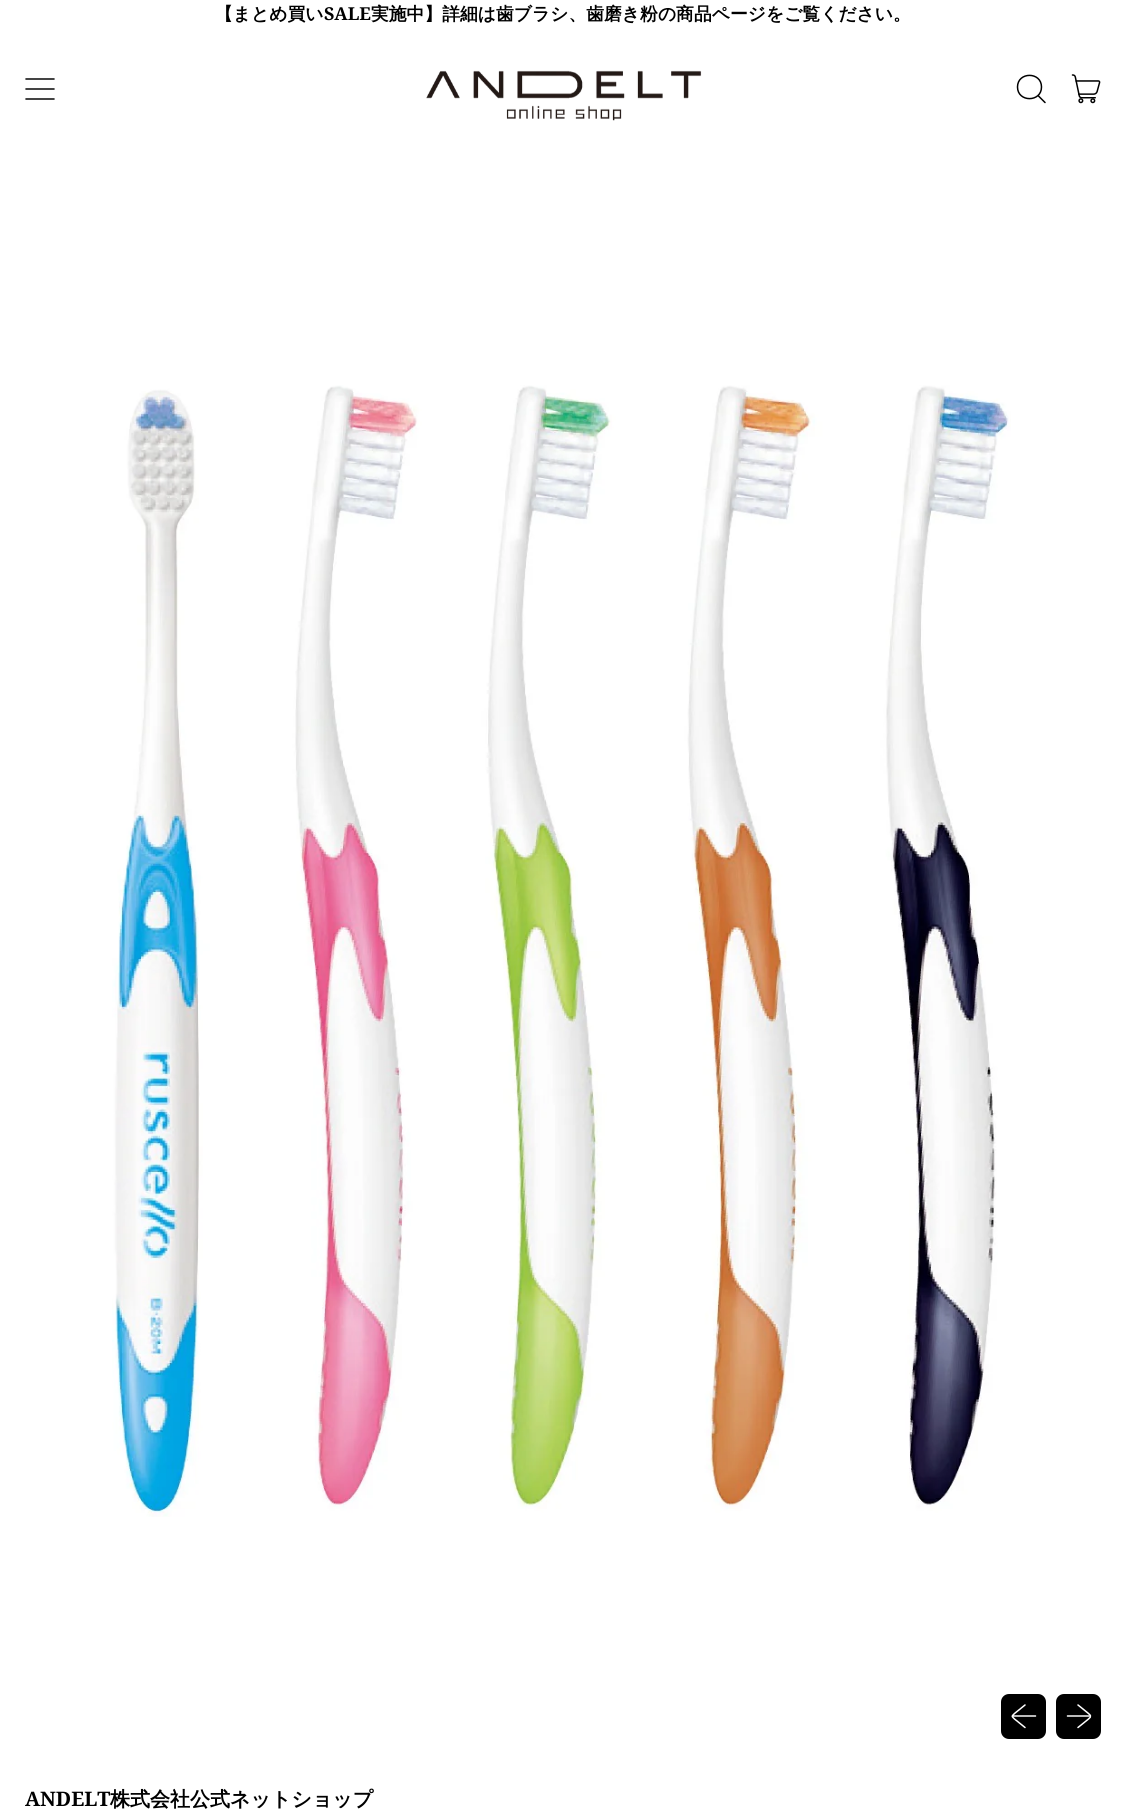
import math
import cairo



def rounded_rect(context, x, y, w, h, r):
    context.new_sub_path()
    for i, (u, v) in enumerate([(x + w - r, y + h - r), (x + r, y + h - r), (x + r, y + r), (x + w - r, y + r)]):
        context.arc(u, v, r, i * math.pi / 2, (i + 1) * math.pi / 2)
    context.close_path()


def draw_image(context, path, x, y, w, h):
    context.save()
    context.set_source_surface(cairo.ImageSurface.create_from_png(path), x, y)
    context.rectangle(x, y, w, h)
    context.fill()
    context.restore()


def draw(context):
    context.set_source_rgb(1, 1, 1)
    context.paint()
    context.new_path()
    context.move_to(54, 99)
    context.line_to(26, 99)
    context.move_to(54, 89)
    context.line_to(26, 89)
    context.move_to(54, 79)
    context.line_to(26, 79)
    context.set_source_rgb(0, 0, 0)
    context.set_line_width(1.5)
    context.set_line_cap(cairo.LineCap.ROUND)
    context.set_line_join(cairo.LineJoin.ROUND)
    context.stroke()
    draw_image(context, "images/1.png", 426, 70, 276, 51)
    context.new_path()
    context.move_to(1017.5, 87)
    context.curve_to(1017.5, 102.5, 1041.5, 102.5, 1041.5, 87)
    context.curve_to(1041.5, 71.5, 1017.5, 71.5, 1017.5, 87)
    context.close_path()
    context.move_to(1045, 102.5)
    context.line_to(1038, 95.5)
    context.stroke()
    draw_image(context, "images/2.png", 1071, 74, 30, 30)
    draw_image(context, "images/3.png", 112, 385, 899, 1132)
    rounded_rect(context, 1001, 1694, 45, 45, 8)
    context.fill()
    context.new_path()
    context.move_to(1012.5, 1716)
    context.line_to(1035.5, 1716)
    context.move_to(1025, 1727.5)
    context.line_to(1014.5, 1719)
    context.curve_to(1011.5, 1716, 1011.5, 1716.5, 1014.5, 1713.5)
    context.line_to(1025, 1705)
    context.set_source_rgb(1, 1, 1)
    context.stroke()
    context.set_source_rgb(0, 0, 0)
    rounded_rect(context, 1056, 1694, 45, 45, 8)
    context.fill()
    context.new_path()
    context.move_to(1090.5, 1716)
    context.line_to(1067.5, 1716)
    context.set_source_rgb(1, 1, 1)
    context.stroke()
    context.save()
    context.rectangle(1066, 1704, 25, 25)
    context.clip()
    context.new_path()
    context.move_to(1078, 1727.5)
    context.line_to(1088.5, 1719)
    context.curve_to(1091.5, 1716, 1091.5, 1716.5, 1088.5, 1713.5)
    context.line_to(1078, 1705)
    context.stroke()
    context.restore()
    context.select_font_face("WenQuanYi Zen Hei", cairo.FontSlant.NORMAL, cairo.FontWeight.BOLD)
    context.set_font_size(17.8)
    context.set_source_rgb(0, 0, 0)
    context.move_to(215, 20)
    context.show_text("【まとめ買い")
    context.select_font_face("Noto Serif", cairo.FontSlant.NORMAL, cairo.FontWeight.BOLD)
    context.move_to(324, 20)
    context.show_text("SALE")
    context.select_font_face("WenQuanYi Zen Hei", cairo.FontSlant.NORMAL, cairo.FontWeight.BOLD)
    context.move_to(371, 20)
    context.show_text("実施中】詳細は歯ブラシ、歯磨き粉の商品ページをご覧ください。")
    context.select_font_face("Noto Serif", cairo.FontSlant.NORMAL, cairo.FontWeight.BOLD)
    context.set_font_size(20)
    context.move_to(25, 1806)
    context.show_text("ANDELT")
    context.select_font_face("WenQuanYi Zen Hei", cairo.FontSlant.NORMAL, cairo.FontWeight.BOLD)
    context.move_to(110, 1806)
    context.show_text("株式会社公式ネットショップ")


surface = cairo.ImageSurface(cairo.Format.RGB24, 1126, 1820)
context = cairo.Context(surface)
options = cairo.FontOptions()
options.set_hint_metrics(cairo.HintMetrics.OFF)
options.set_hint_style(cairo.HintStyle.NONE)
context.set_font_options(options)
context.set_miter_limit(4)
draw(context)
surface.write_to_png("out.png")
